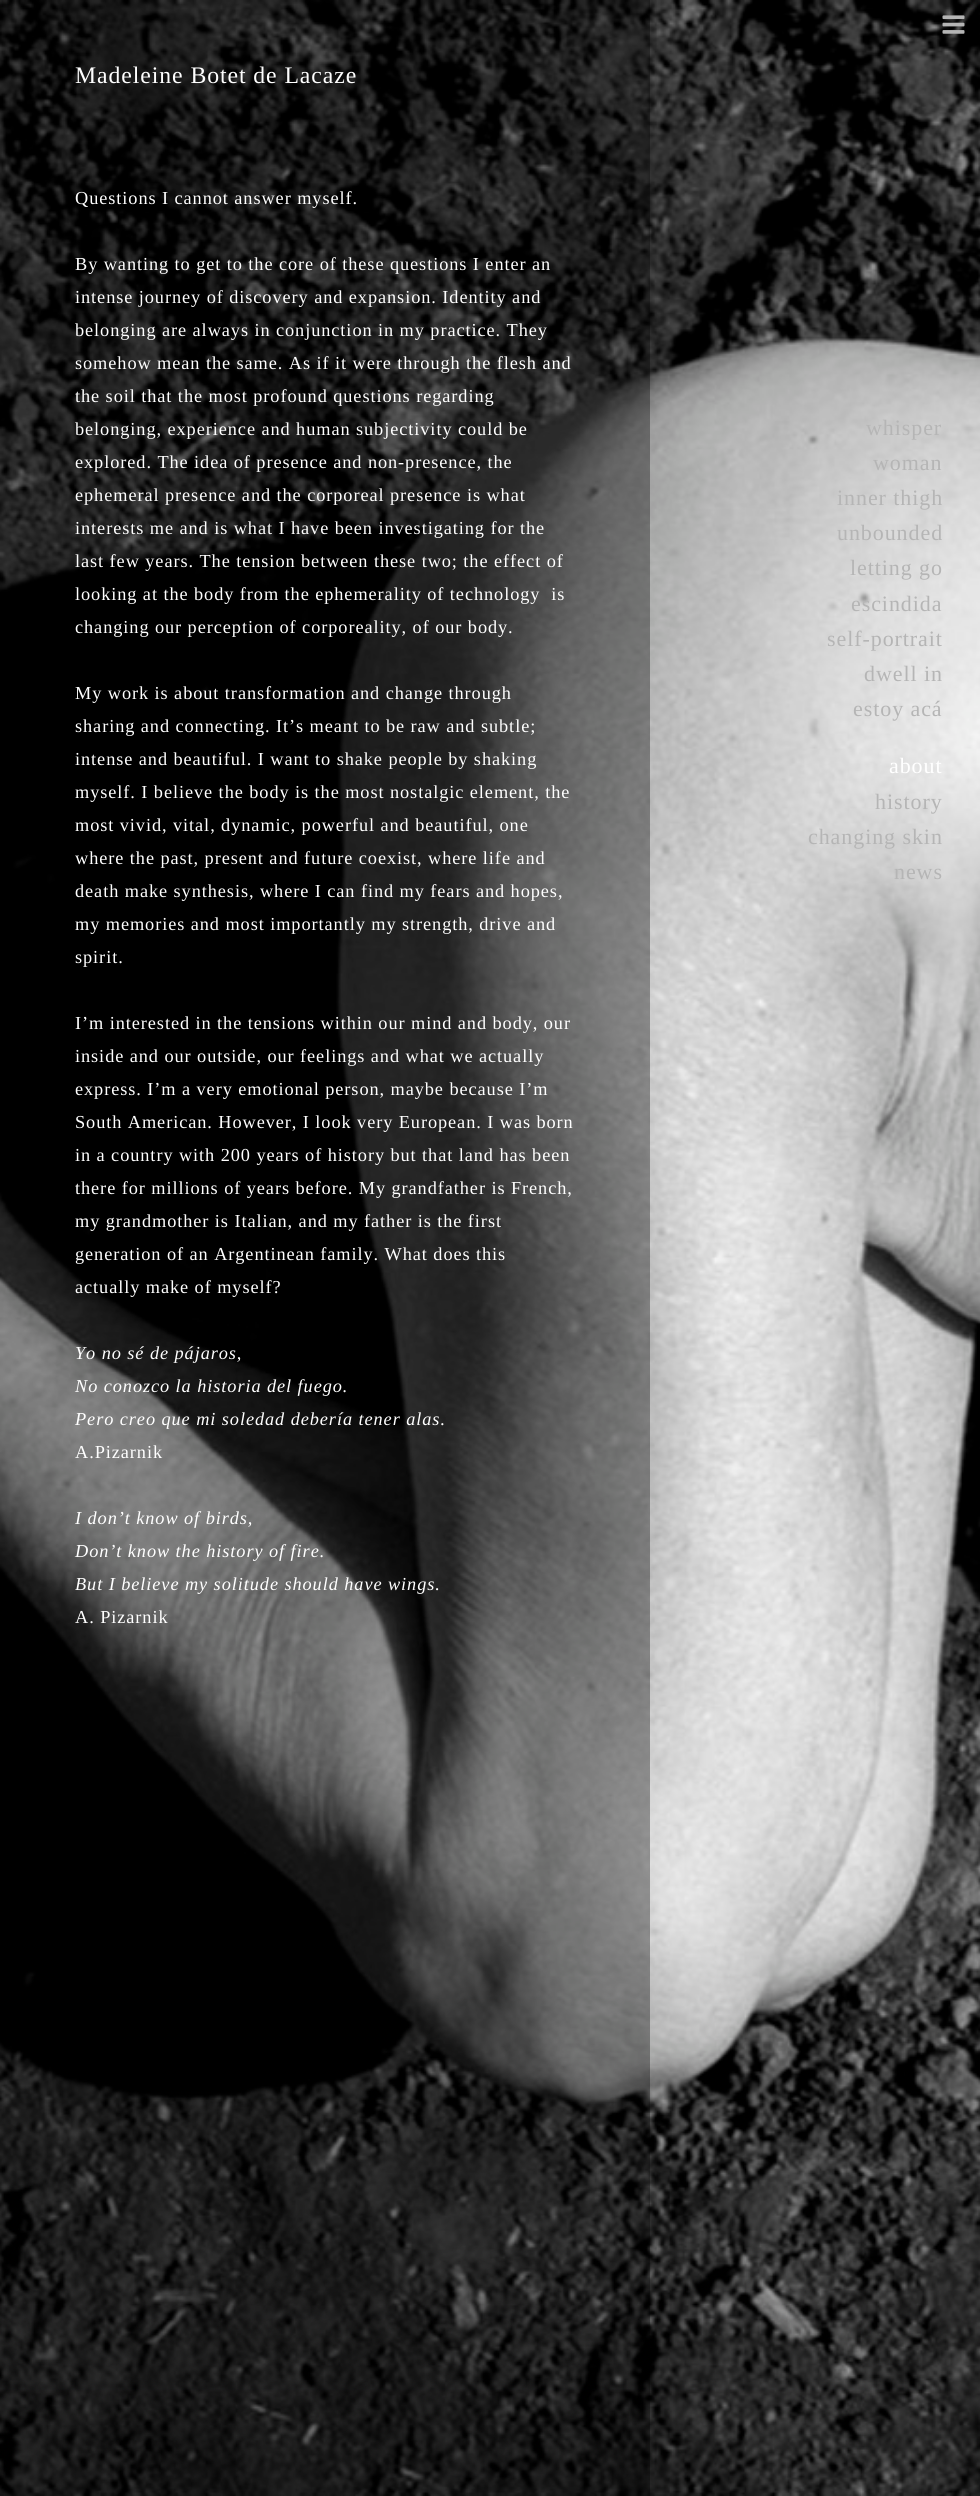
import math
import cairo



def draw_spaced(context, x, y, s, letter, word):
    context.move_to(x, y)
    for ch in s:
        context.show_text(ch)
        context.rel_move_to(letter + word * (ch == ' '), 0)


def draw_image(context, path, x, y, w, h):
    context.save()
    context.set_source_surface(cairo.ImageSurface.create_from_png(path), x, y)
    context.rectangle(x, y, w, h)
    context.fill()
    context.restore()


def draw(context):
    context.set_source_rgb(1, 1, 1)
    context.paint()
    draw_image(context, "images/1.png", 0, 0, 980, 2496)
    draw_image(context, "images/2.png", 942, 15, 23, 19)
    context.set_source_rgba(0, 0, 0, 0.34)
    context.rectangle(0, 0, 650, 2496)
    context.fill()
    context.select_font_face("Liberation Serif")
    context.set_font_size(23.75)
    context.set_source_rgb(1, 1, 1)
    draw_spaced(context, 75, 83, "Madeleine Botet de Lacaze", 0.92, 0)
    context.set_font_size(18.3)
    draw_spaced(context, 75, 204, "Questions I cannot answer myself.", 0.92, 0)
    draw_spaced(context, 75, 270, "By wanting to get to the core of these questions I enter an", 0.92, 0)
    draw_spaced(context, 75, 303, "intense journey of discovery and expansion. Identity and", 0.92, 0)
    draw_spaced(context, 75, 336, "belonging are always in conjunction in my practice. They", 0.92, 0)
    draw_spaced(context, 75, 369, "somehow mean the same. As if it were through the flesh and", 0.92, 0)
    draw_spaced(context, 75, 402, "the soil that the most profound questions regarding", 0.92, 0)
    draw_spaced(context, 75, 435, "belonging, experience and human subjectivity could be", 0.92, 0)
    draw_spaced(context, 75, 468, "explored. The idea of presence and non-presence, the", 0.92, 0)
    draw_spaced(context, 75, 501, "ephemeral presence and the corporeal presence is what", 0.92, 0)
    draw_spaced(context, 75, 534, "interests me and is what I have been investigating for the", 0.92, 0)
    draw_spaced(context, 75, 567, "last few years. The tension between these two; the effect of", 0.92, 0)
    draw_spaced(context, 75, 600, "looking at the body from the ephemerality of technology  is", 0.92, 0)
    draw_spaced(context, 75, 633, "changing our perception of corporeality, of our body.", 0.92, 0)
    draw_spaced(context, 75, 699, "My work is about transformation and change through", 0.92, 0)
    draw_spaced(context, 75, 732, "sharing and connecting. It’s meant to be raw and subtle;", 0.92, 0)
    draw_spaced(context, 75, 765, "intense and beautiful. I want to shake people by shaking", 0.92, 0)
    draw_spaced(context, 75, 798, "myself. I believe the body is the most nostalgic element, the", 0.92, 0)
    draw_spaced(context, 75, 831, "most vivid, vital, dynamic, powerful and beautiful, one", 0.92, 0)
    draw_spaced(context, 75, 864, "where the past, present and future coexist, where life and", 0.92, 0)
    draw_spaced(context, 75, 897, "death make synthesis, where I can find my fears and hopes,", 0.92, 0)
    draw_spaced(context, 75, 930, "my memories and most importantly my strength, drive and", 0.92, 0)
    draw_spaced(context, 75, 963, "spirit.", 0.92, 0)
    draw_spaced(context, 75, 1029, "I’m interested in the tensions within our mind and body, our", 0.92, 0)
    draw_spaced(context, 75, 1062, "inside and our outside, our feelings and what we actually", 0.92, 0)
    draw_spaced(context, 75, 1095, "express. I’m a very emotional person, maybe because I’m", 0.92, 0)
    draw_spaced(context, 75, 1128, "South American. However, I look very European. I was born", 0.92, 0)
    draw_spaced(context, 75, 1161, "in a country with 200 years of history but that land has been", 0.92, 0)
    draw_spaced(context, 75, 1194, "there for millions of years before. My grandfather is French,", 0.92, 0)
    draw_spaced(context, 75, 1227, "my grandmother is Italian, and my father is the first", 0.92, 0)
    draw_spaced(context, 75, 1260, "generation of an Argentinean family. What does this", 0.92, 0)
    draw_spaced(context, 75, 1293, "actually make of myself?", 0.92, 0)
    context.select_font_face("Liberation Serif", cairo.FontSlant.ITALIC)
    draw_spaced(context, 75, 1359, "Yo no sé de pájaros,", 0.92, 0)
    draw_spaced(context, 75, 1392, "No conozco la historia del fuego.", 0.92, 0)
    draw_spaced(context, 75, 1425, "Pero creo que mi soledad debería tener alas.", 0.92, 0)
    context.select_font_face("Liberation Serif")
    draw_spaced(context, 75, 1458, "A.Pizarnik", 0.92, 0)
    context.select_font_face("Liberation Serif", cairo.FontSlant.ITALIC)
    draw_spaced(context, 75, 1524, "I don’t know of birds,", 0.92, 0)
    draw_spaced(context, 75, 1557, "Don’t know the history of fire.", 0.92, 0)
    draw_spaced(context, 75, 1590, "But I believe my solitude should have wings.", 0.92, 0)
    context.select_font_face("Liberation Serif")
    draw_spaced(context, 75, 1623, "A. Pizarnik", 0.92, 0)
    context.set_font_size(22)
    context.set_source_rgb(181 / 255, 181 / 255, 181 / 255)
    draw_spaced(context, 866, 435, "whisper", 0.92, 0)
    draw_spaced(context, 873, 470, "woman", 0.92, 0)
    draw_spaced(context, 837, 505, "inner thigh", 0.92, 0)
    draw_spaced(context, 837, 540, "unbounded", 0.92, 0)
    draw_spaced(context, 850, 575, "letting go", 0.92, 0)
    draw_spaced(context, 851, 611, "escindida", 0.92, 0)
    draw_spaced(context, 827, 646, "self-portrait", 0.92, 0)
    draw_spaced(context, 864, 681, "dwell in", 0.92, 0)
    draw_spaced(context, 853, 716, "estoy acá", 0.92, 0)
    context.set_source_rgb(1, 1, 1)
    draw_spaced(context, 889, 773, "about", 0.92, 0)
    context.set_source_rgb(181 / 255, 181 / 255, 181 / 255)
    draw_spaced(context, 875, 809, "history", 0.92, 0)
    draw_spaced(context, 808, 844, "changing skin", 0.92, 0)
    draw_spaced(context, 894, 879, "news", 0.92, 0)


surface = cairo.ImageSurface(cairo.Format.RGB24, 980, 2496)
context = cairo.Context(surface)
options = cairo.FontOptions()
options.set_hint_metrics(cairo.HintMetrics.OFF)
options.set_hint_style(cairo.HintStyle.NONE)
context.set_font_options(options)
context.set_miter_limit(4)
draw(context)
surface.write_to_png("out.png")
